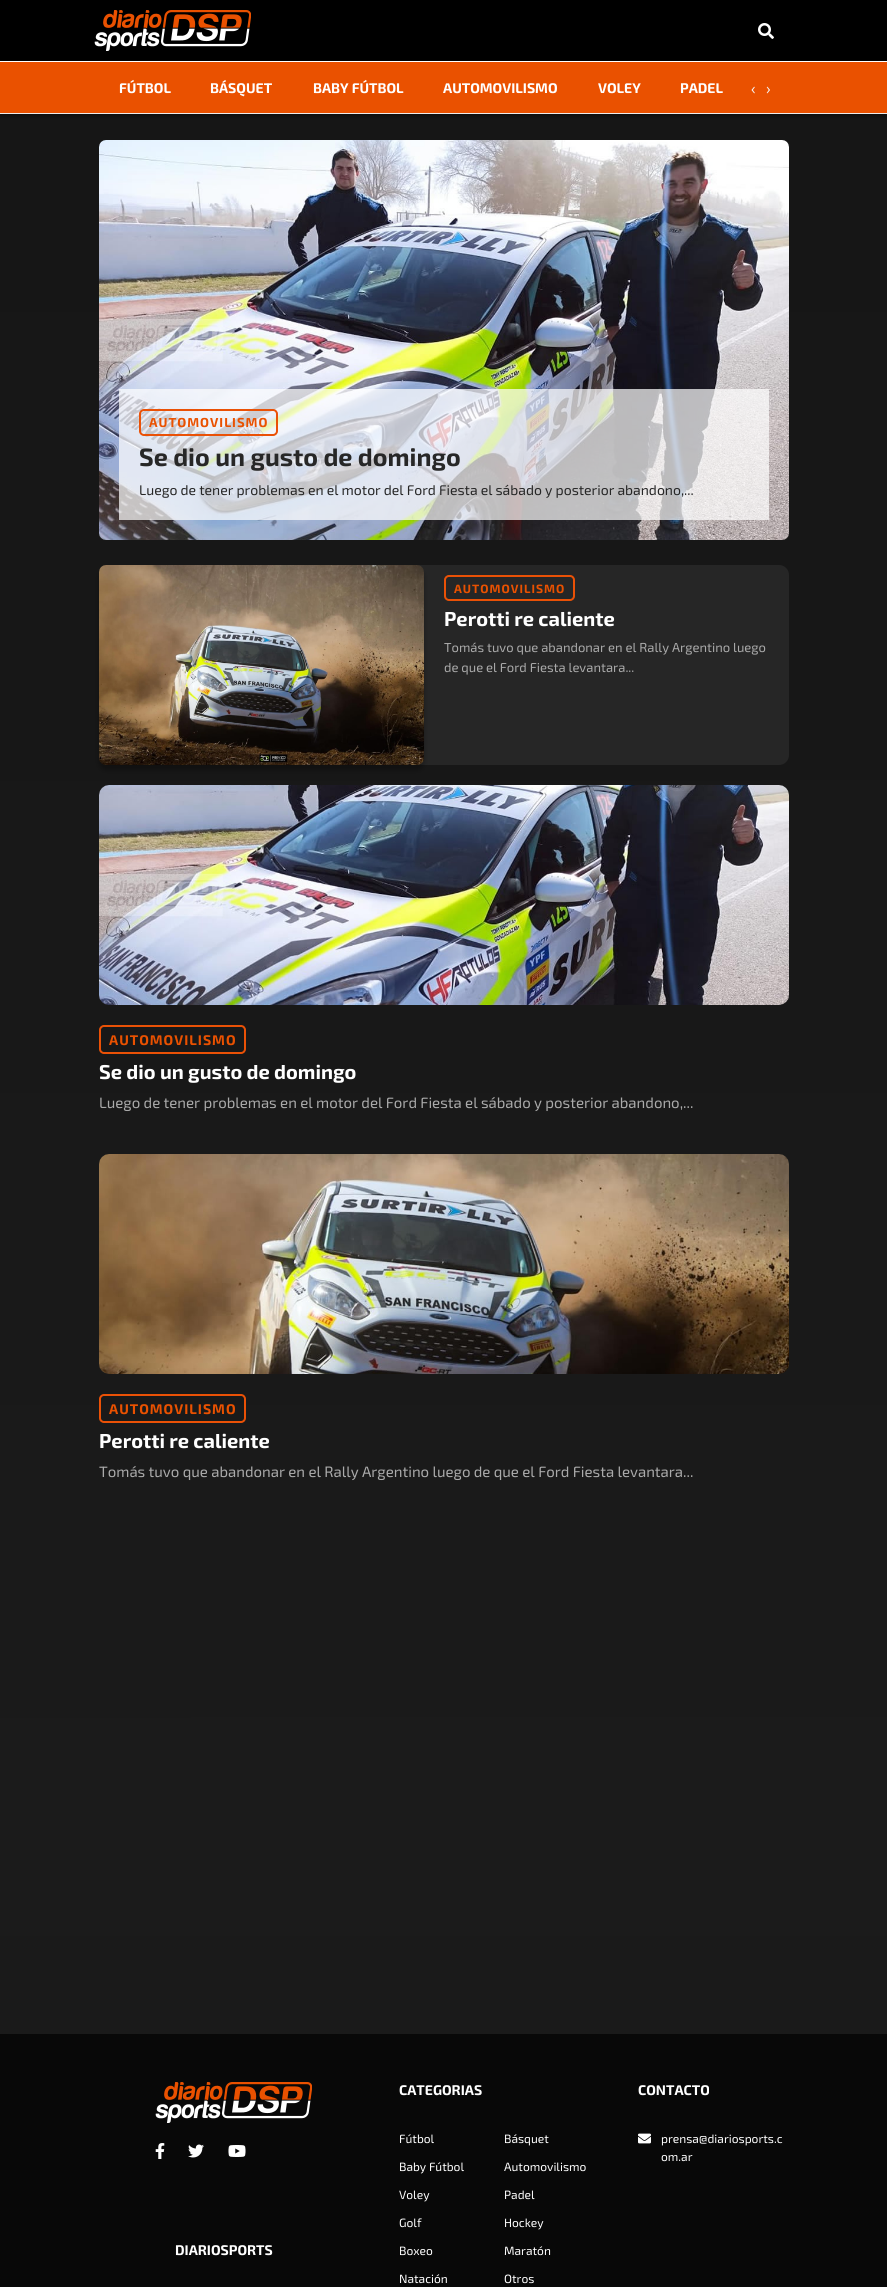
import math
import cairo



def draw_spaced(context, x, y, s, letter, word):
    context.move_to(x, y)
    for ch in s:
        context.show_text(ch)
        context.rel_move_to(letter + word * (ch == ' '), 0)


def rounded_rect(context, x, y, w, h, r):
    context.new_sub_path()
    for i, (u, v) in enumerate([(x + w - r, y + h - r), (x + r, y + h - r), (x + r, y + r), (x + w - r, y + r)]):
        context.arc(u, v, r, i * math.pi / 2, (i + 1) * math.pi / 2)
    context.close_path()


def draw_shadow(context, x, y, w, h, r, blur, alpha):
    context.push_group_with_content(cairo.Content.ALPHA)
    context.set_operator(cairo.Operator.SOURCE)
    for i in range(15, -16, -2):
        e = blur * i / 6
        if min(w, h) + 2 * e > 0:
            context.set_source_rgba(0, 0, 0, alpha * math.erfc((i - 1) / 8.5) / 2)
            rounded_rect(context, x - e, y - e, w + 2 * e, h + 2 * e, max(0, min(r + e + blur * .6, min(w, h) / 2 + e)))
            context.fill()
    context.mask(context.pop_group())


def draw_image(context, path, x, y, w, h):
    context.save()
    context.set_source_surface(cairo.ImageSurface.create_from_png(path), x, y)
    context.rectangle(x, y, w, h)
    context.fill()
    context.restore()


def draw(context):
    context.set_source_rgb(1, 1, 1)
    context.paint()
    gradient = cairo.LinearGradient(443, 0, 444, 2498)
    gradient.add_color_stop_rgba(0, 22 / 255, 22 / 255, 22 / 255, 1)
    gradient.add_color_stop_rgba(0.25, 23 / 255, 23 / 255, 23 / 255, 1)
    gradient.add_color_stop_rgba(0.5, 25 / 255, 25 / 255, 25 / 255, 1)
    gradient.add_color_stop_rgba(0.75, 27 / 255, 27 / 255, 27 / 255, 1)
    gradient.add_color_stop_rgba(1, 22 / 255, 22 / 255, 22 / 255, 1)
    context.set_source(gradient)
    context.rectangle(0, 114, 887, 1920)
    context.fill()
    context.set_source_rgb(0, 0, 0)
    context.rectangle(0, 0, 887, 61)
    context.fill()
    draw_image(context, "images/1.png", 94, 10, 157, 41)
    draw_image(context, "images/2.png", 758, 23, 16, 16)
    context.set_source_rgb(0, 0, 0)
    draw_shadow(context, 0, 63, 887, 53, 0, 2.5, 0.5)
    context.set_source_rgb(234 / 255, 81 / 255, 0)
    context.rectangle(0, 62, 887, 51)
    context.fill()
    context.set_source_rgb(1, 1, 1)
    context.rectangle(0, 61, 887, 1)
    context.fill()
    context.set_source_rgb(237 / 255, 237 / 255, 237 / 255)
    context.rectangle(0, 113, 887, 1)
    context.fill()
    draw_image(context, "images/3.png", 99, 140, 690, 400)
    context.set_source_rgba(1, 1, 1, 0.71)
    context.rectangle(119, 389, 650, 131)
    context.fill()
    rounded_rect(context, 140, 410, 137, 25, 4)
    context.set_source_rgb(234 / 255, 81 / 255, 6 / 255)
    context.stroke()
    context.set_source_rgb(38 / 255, 38 / 255, 38 / 255)
    rounded_rect(context, 99, 565, 690, 200, 10)
    context.fill()
    context.set_source_rgb(0, 0, 0)
    draw_shadow(context, 99, 570, 325, 200, 7, 2.5, 0.3)
    draw_image(context, "images/4.png", 99, 565, 325, 200)
    rounded_rect(context, 445, 576, 129, 24, 4)
    context.set_source_rgb(234 / 255, 81 / 255, 6 / 255)
    context.stroke()
    draw_image(context, "images/5.png", 99, 785, 690, 220)
    rounded_rect(context, 100, 1026, 145, 27, 4)
    context.stroke()
    draw_image(context, "images/6.png", 99, 1154, 690, 220)
    rounded_rect(context, 100, 1395, 145, 27, 4)
    context.stroke()
    context.set_source_rgb(8 / 255, 8 / 255, 8 / 255)
    context.rectangle(0, 2034, 887, 253)
    context.fill()
    draw_image(context, "images/7.png", 638, 2133, 13, 11)
    draw_image(context, "images/8.png", 155, 2082, 157, 41)
    draw_image(context, "images/9.png", 155, 2143, 10, 16)
    draw_image(context, "images/10.png", 188, 2144, 16, 14)
    draw_image(context, "images/11.png", 228, 2145, 18, 12)
    context.select_font_face("Exo 2", cairo.FontSlant.NORMAL, cairo.FontWeight.BOLD)
    context.set_font_size(14)
    context.set_source_rgb(1, 1, 1)
    context.move_to(119, 93)
    context.show_text("FÚTBOL")
    context.move_to(210, 93)
    context.show_text("BÁSQUET")
    context.move_to(313, 93)
    context.show_text("BABY FÚTBOL")
    context.move_to(443, 93)
    context.show_text("AUTOMOVILISMO")
    context.move_to(598, 93)
    context.show_text("VOLEY")
    context.move_to(680, 93)
    context.show_text("PADEL")
    context.select_font_face("Exo 2")
    context.set_font_size(16)
    context.set_source_rgb(245 / 255, 245 / 255, 245 / 255)
    context.move_to(751, 94)
    context.show_text("‹")
    context.move_to(766, 94)
    context.show_text("›")
    context.select_font_face("Exo 2", cairo.FontSlant.NORMAL, cairo.FontWeight.BOLD)
    context.set_font_size(13)
    context.set_source_rgb(234 / 255, 81 / 255, 0)
    draw_spaced(context, 149, 427, "AUTOMOVILISMO", 1, 0)
    context.set_font_size(25)
    context.set_source_rgb(39 / 255, 39 / 255, 39 / 255)
    context.move_to(139, 466)
    context.show_text("Se dio un gusto de domingo")
    context.select_font_face("Exo 2")
    context.set_font_size(14)
    context.move_to(139, 495)
    context.show_text("Luego de tener problemas en el motor del Ford Fiesta el sábado y posterior abandono,...")
    context.select_font_face("Exo 2", cairo.FontSlant.NORMAL, cairo.FontWeight.BOLD)
    context.set_font_size(12)
    context.set_source_rgb(234 / 255, 81 / 255, 0)
    draw_spaced(context, 454, 593, "AUTOMOVILISMO", 1, 0)
    context.set_font_size(20)
    context.set_source_rgb(1, 1, 1)
    context.move_to(444, 626)
    context.show_text("Perotti re caliente")
    context.select_font_face("Exo 2")
    context.set_font_size(13)
    context.set_source_rgb(170 / 255, 170 / 255, 170 / 255)
    context.move_to(444, 652)
    context.show_text("Tomás tuvo que abandonar en el Rally Argentino luego")
    context.move_to(444, 672)
    context.show_text("de que el Ford Fiesta levantara...")
    context.select_font_face("Exo 2", cairo.FontSlant.NORMAL, cairo.FontWeight.BOLD)
    context.set_font_size(14)
    context.set_source_rgb(234 / 255, 81 / 255, 0)
    draw_spaced(context, 109, 1045, "AUTOMOVILISMO", 1, 0)
    context.set_font_size(20)
    context.set_source_rgb(1, 1, 1)
    context.move_to(99, 1079)
    context.show_text("Se dio un gusto de domingo")
    context.select_font_face("Exo 2")
    context.set_font_size(15)
    context.set_source_rgb(170 / 255, 170 / 255, 170 / 255)
    context.move_to(99, 1108)
    context.show_text("Luego de tener problemas en el motor del Ford Fiesta el sábado y posterior abandono,...")
    context.select_font_face("Exo 2", cairo.FontSlant.NORMAL, cairo.FontWeight.BOLD)
    context.set_font_size(14)
    context.set_source_rgb(234 / 255, 81 / 255, 0)
    draw_spaced(context, 109, 1414, "AUTOMOVILISMO", 1, 0)
    context.set_font_size(20)
    context.set_source_rgb(1, 1, 1)
    context.move_to(99, 1448)
    context.show_text("Perotti re caliente")
    context.select_font_face("Exo 2")
    context.set_font_size(15)
    context.set_source_rgb(170 / 255, 170 / 255, 170 / 255)
    context.move_to(99, 1477)
    context.show_text("Tomás tuvo que abandonar en el Rally Argentino luego de que el Ford Fiesta levantara...")
    context.select_font_face("Exo 2", cairo.FontSlant.NORMAL, cairo.FontWeight.BOLD)
    context.set_font_size(14)
    context.set_source_rgb(1, 1, 1)
    context.move_to(399, 2095)
    context.show_text("CATEGORIAS")
    context.select_font_face("Exo 2")
    context.set_font_size(12)
    context.move_to(399, 2143)
    context.show_text("Fútbol")
    context.move_to(504, 2143)
    context.show_text("Básquet")
    context.move_to(399, 2171)
    context.show_text("Baby Fútbol")
    context.move_to(504, 2171)
    context.show_text("Automovilismo")
    context.move_to(399, 2199)
    context.show_text("Voley")
    context.move_to(504, 2199)
    context.show_text("Padel")
    context.move_to(399, 2227)
    context.show_text("Golf")
    context.move_to(504, 2227)
    context.show_text("Hockey")
    context.move_to(399, 2255)
    context.show_text("Boxeo")
    context.move_to(504, 2255)
    context.show_text("Maratón")
    context.move_to(399, 2283)
    context.show_text("Natación")
    context.move_to(504, 2283)
    context.show_text("Otros")
    context.select_font_face("Exo 2", cairo.FontSlant.NORMAL, cairo.FontWeight.BOLD)
    context.set_font_size(14)
    context.move_to(638, 2095)
    context.show_text("CONTACTO")
    context.select_font_face("Exo 2")
    context.set_font_size(12)
    context.move_to(661, 2143)
    context.show_text("prensa@diariosports.c")
    context.move_to(661, 2161)
    context.show_text("om.ar")
    context.select_font_face("Exo 2", cairo.FontSlant.NORMAL, cairo.FontWeight.BOLD)
    context.set_font_size(14)
    context.move_to(175, 2255)
    context.show_text("DIARIOSPORTS")


surface = cairo.ImageSurface(cairo.Format.RGB24, 887, 2287)
context = cairo.Context(surface)
options = cairo.FontOptions()
options.set_hint_metrics(cairo.HintMetrics.OFF)
options.set_hint_style(cairo.HintStyle.NONE)
context.set_font_options(options)
context.set_miter_limit(4)
draw(context)
surface.write_to_png("out.png")
